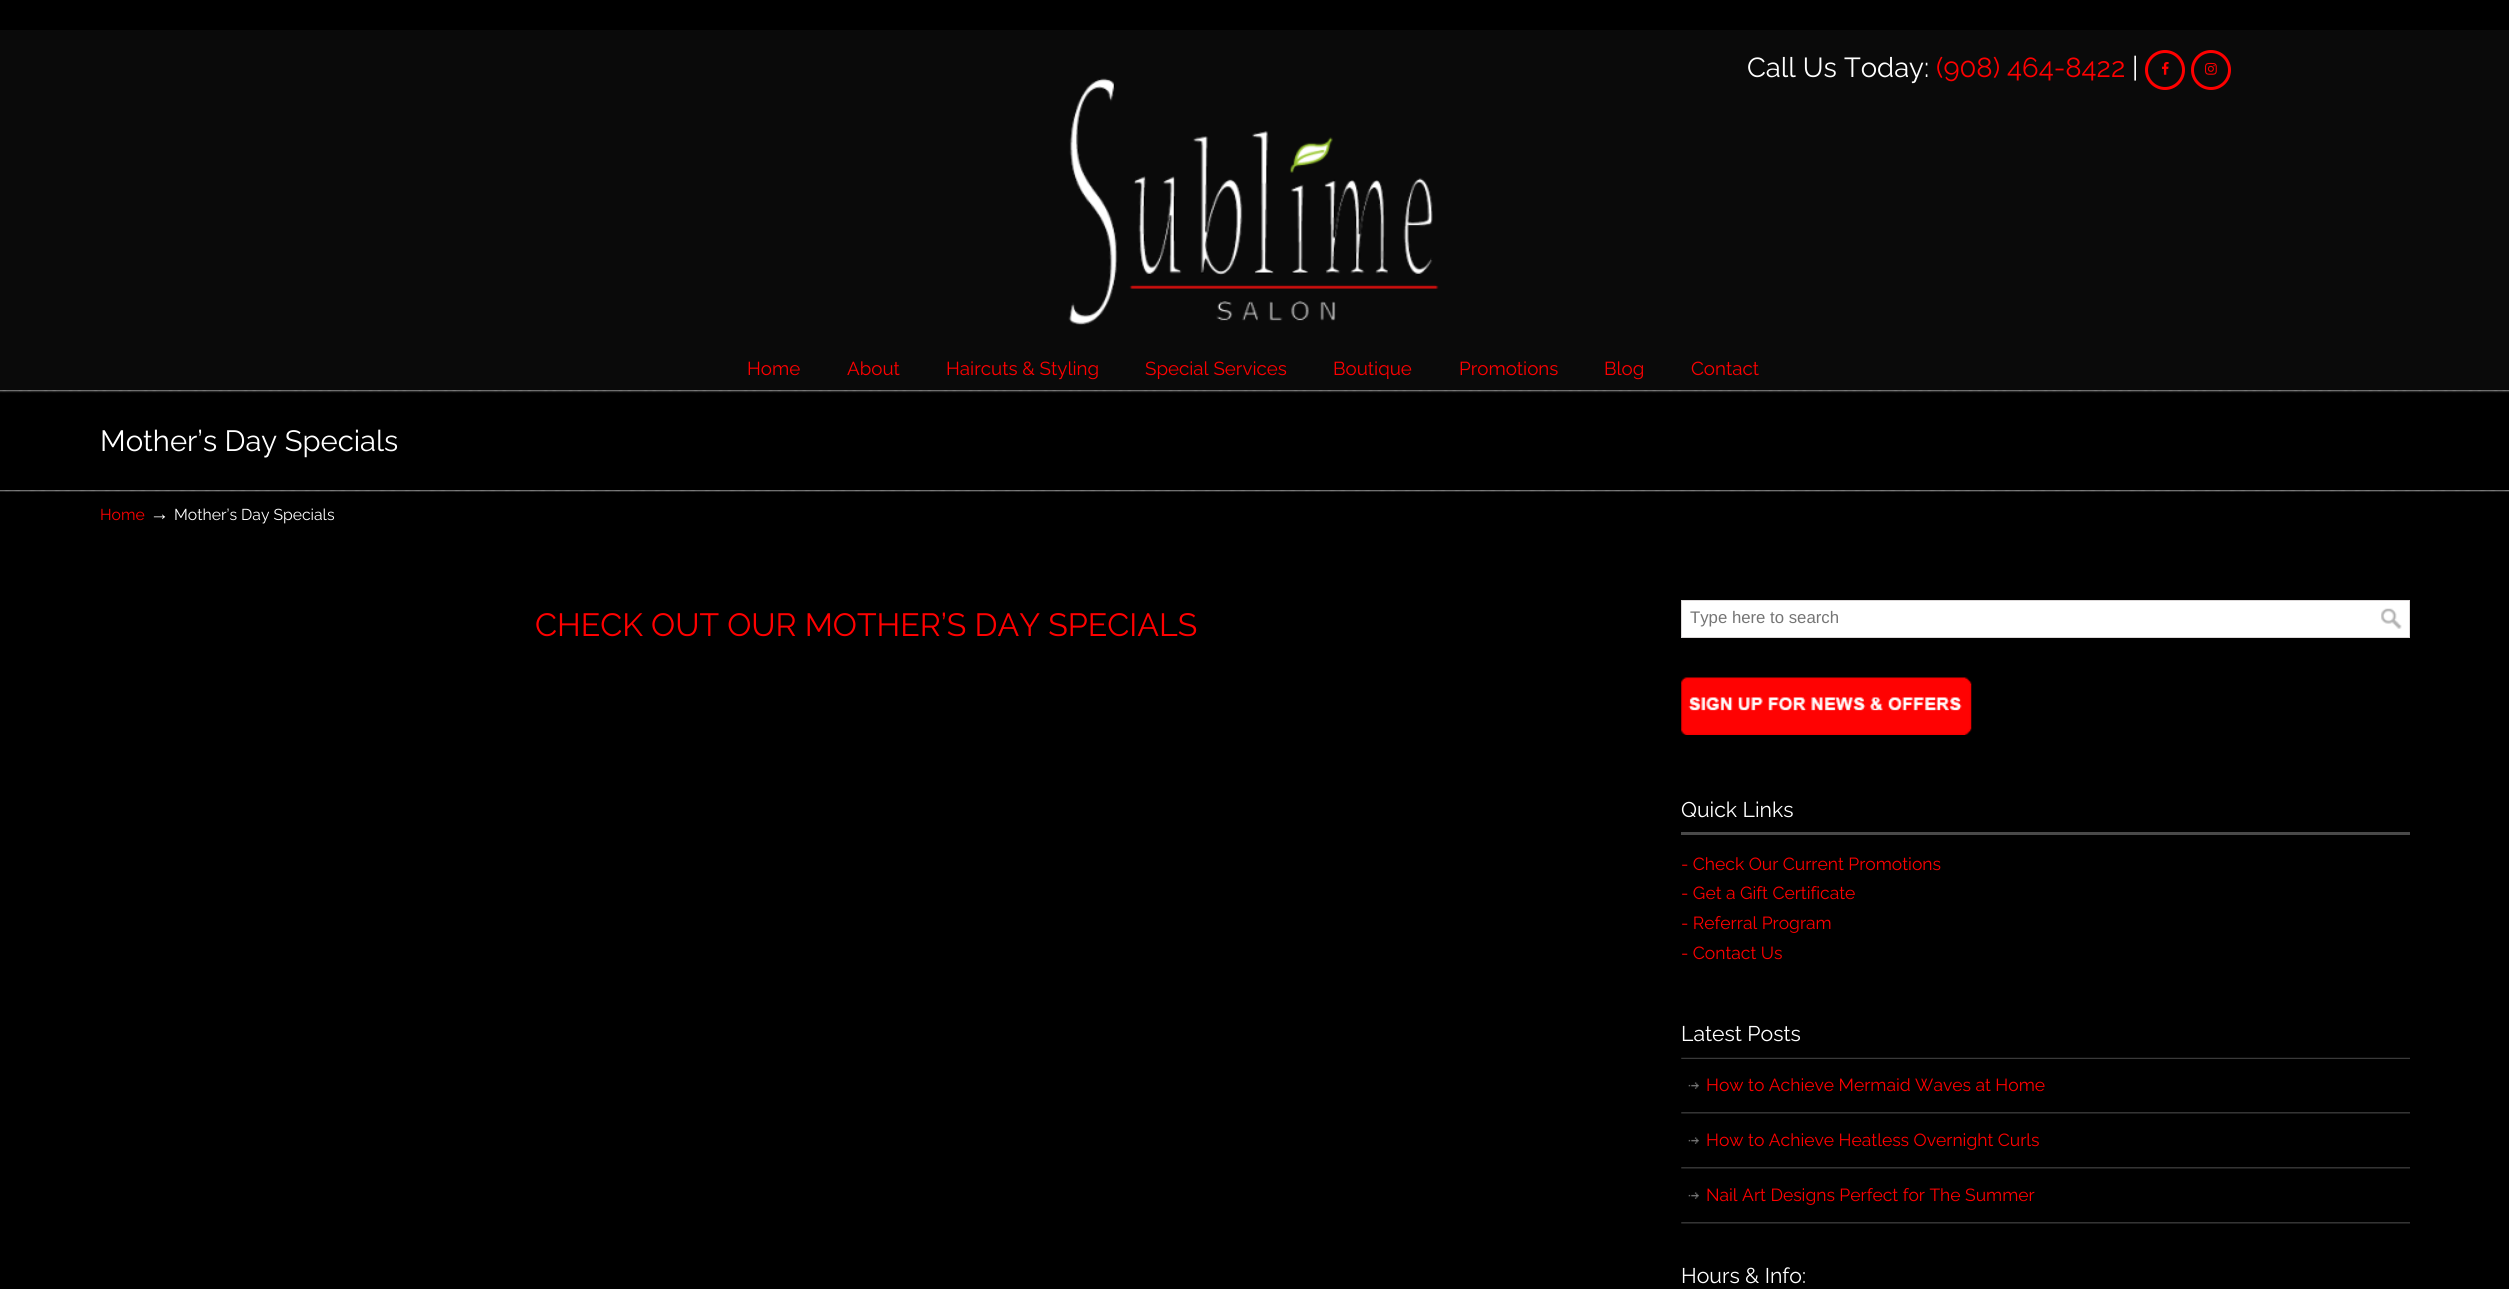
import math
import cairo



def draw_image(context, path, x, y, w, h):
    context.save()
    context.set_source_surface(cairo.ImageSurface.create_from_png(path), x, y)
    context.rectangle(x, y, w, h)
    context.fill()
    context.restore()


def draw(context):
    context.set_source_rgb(0, 0, 0)
    context.paint()
    context.set_source_rgb(10 / 255, 10 / 255, 10 / 255)
    context.rectangle(0, 30, 2509, 363)
    context.fill()
    context.arc(2165, 70, 18.5, 0, 2 * math.pi)
    context.set_source_rgb(1, 0, 0)
    context.set_line_width(3)
    context.stroke()
    draw_image(context, "images/1.png", 2162, 62, 7, 13)
    context.arc(2211, 70, 18.5, 0, 2 * math.pi)
    context.stroke()
    draw_image(context, "images/2.png", 2205, 62, 12, 13)
    draw_image(context, "images/3.png", 1068, 78, 371, 247)
    draw_image(context, "images/4.png", 0, 390, 2509, 2)
    draw_image(context, "images/5.png", 0, 490, 2509, 2)
    context.set_source_rgb(1, 1, 1)
    context.rectangle(1681.5, 600.5, 728, 37)
    context.fill_preserve()
    context.set_source_rgb(221 / 255, 217 / 255, 217 / 255)
    context.set_line_width(1)
    context.stroke()
    draw_image(context, "images/6.png", 2381, 608, 21, 21)
    draw_image(context, "images/7.png", 1681, 677, 291, 58)
    context.set_source_rgb(73 / 255, 73 / 255, 73 / 255)
    context.rectangle(1681, 832, 729, 3)
    context.fill()
    draw_image(context, "images/8.png", 1681, 1057, 729, 2)
    draw_image(context, "images/9.png", 1681, 1112, 729, 2)
    draw_image(context, "images/10.png", 1688, 1082, 11, 7)
    draw_image(context, "images/9.png", 1681, 1167, 729, 2)
    draw_image(context, "images/10.png", 1688, 1137, 11, 7)
    draw_image(context, "images/9.png", 1681, 1222, 729, 2)
    draw_image(context, "images/10.png", 1688, 1192, 11, 7)
    context.select_font_face("Raleway Thin")
    context.set_font_size(27.5)
    context.set_source_rgb(1, 1, 1)
    context.move_to(1747, 77)
    context.show_text("Call Us Today:")
    context.set_source_rgb(1, 0, 0)
    context.move_to(1936, 77)
    context.show_text("(908) 464-8422")
    context.set_source_rgb(1, 1, 1)
    context.move_to(2132, 77)
    context.show_text("|")
    context.set_font_size(18.75)
    context.set_source_rgb(1, 0, 0)
    context.move_to(747, 375)
    context.show_text("Home")
    context.move_to(847, 375)
    context.show_text("About")
    context.move_to(946, 375)
    context.show_text("Haircuts & Styling")
    context.move_to(1145, 375)
    context.show_text("Special Services")
    context.move_to(1333, 375)
    context.show_text("Boutique")
    context.move_to(1459, 375)
    context.show_text("Promotions")
    context.move_to(1604, 375)
    context.show_text("Blog")
    context.move_to(1691, 375)
    context.show_text("Contact")
    context.set_font_size(29.25)
    context.set_source_rgb(1, 1, 1)
    context.move_to(100, 451)
    context.show_text("Mother’s Day Specials")
    context.set_font_size(15.75)
    context.set_source_rgb(1, 0, 0)
    context.move_to(100, 520)
    context.show_text("Home")
    context.select_font_face("Liberation Serif")
    context.set_font_size(19)
    context.set_source_rgb(1, 1, 1)
    context.move_to(150, 520)
    context.show_text("→")
    context.select_font_face("Raleway Thin")
    context.set_font_size(15.75)
    context.move_to(174, 520)
    context.show_text("Mother’s Day Specials")
    context.set_font_size(32.1)
    context.set_source_rgb(1, 0, 0)
    context.move_to(535, 636)
    context.show_text("CHECK OUT OUR MOTHER’S DAY SPECIALS")
    context.select_font_face("Liberation Sans")
    context.set_font_size(16.75)
    context.set_source_rgb(117 / 255, 117 / 255, 117 / 255)
    context.move_to(1690, 623)
    context.show_text("Type here to search")
    context.select_font_face("Raleway Thin")
    context.set_font_size(21.25)
    context.set_source_rgb(1, 1, 1)
    context.move_to(1681, 817)
    context.show_text("Quick Links")
    context.set_font_size(17.5)
    context.set_source_rgb(1, 0, 0)
    context.move_to(1681, 870)
    context.show_text("- Check Our Current Promotions")
    context.move_to(1681, 899)
    context.show_text("- Get a Gift Certificate")
    context.move_to(1681, 929)
    context.show_text("- Referral Program")
    context.move_to(1681, 959)
    context.show_text("- Contact Us")
    context.set_font_size(21.25)
    context.set_source_rgb(1, 1, 1)
    context.move_to(1681, 1041)
    context.show_text("Latest Posts")
    context.set_font_size(17.5)
    context.set_source_rgb(1, 0, 0)
    context.move_to(1706, 1091)
    context.show_text("How to Achieve Mermaid Waves at Home")
    context.move_to(1706, 1146)
    context.show_text("How to Achieve Heatless Overnight Curls")
    context.move_to(1706, 1201)
    context.show_text("Nail Art Designs Perfect for The Summer")
    context.set_font_size(21.25)
    context.set_source_rgb(1, 1, 1)
    context.move_to(1681, 1283)
    context.show_text("Hours & Info:")


surface = cairo.ImageSurface(cairo.Format.RGB24, 2509, 1289)
context = cairo.Context(surface)
options = cairo.FontOptions()
options.set_hint_metrics(cairo.HintMetrics.OFF)
options.set_hint_style(cairo.HintStyle.NONE)
context.set_font_options(options)
context.set_miter_limit(4)
draw(context)
surface.write_to_png("out.png")
